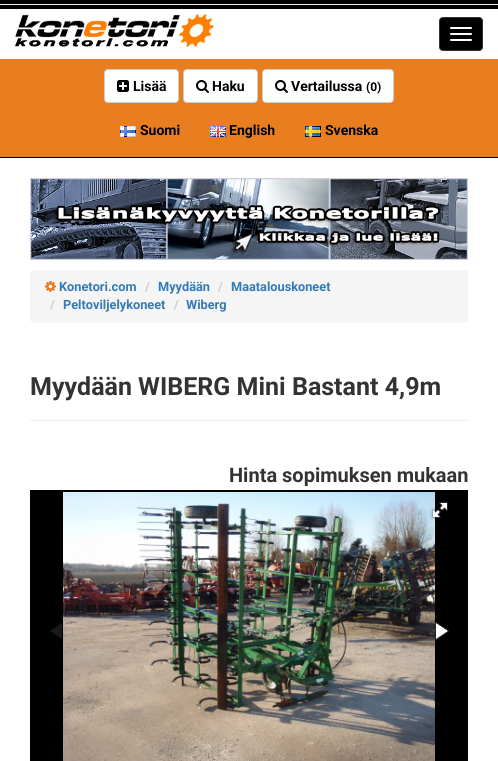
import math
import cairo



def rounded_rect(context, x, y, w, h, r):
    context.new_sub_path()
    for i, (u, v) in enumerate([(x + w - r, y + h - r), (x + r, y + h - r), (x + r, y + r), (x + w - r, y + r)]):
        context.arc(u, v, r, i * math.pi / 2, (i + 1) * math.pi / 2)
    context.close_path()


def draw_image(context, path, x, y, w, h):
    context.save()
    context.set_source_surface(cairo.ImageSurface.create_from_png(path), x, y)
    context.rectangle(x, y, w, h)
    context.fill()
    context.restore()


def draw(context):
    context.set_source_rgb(1, 1, 1)
    context.paint()
    context.set_source_rgb(0, 0, 0)
    context.rectangle(0, 0, 498, 4)
    context.fill()
    context.set_source_rgb(240 / 255, 240 / 255, 240 / 255)
    context.rectangle(0, 4, 498, 1)
    context.fill()
    context.set_source_rgb(233 / 255, 126 / 255, 33 / 255)
    context.rectangle(0, 59, 498, 98)
    context.fill()
    context.set_source_rgb(0, 0, 0)
    context.rectangle(0, 5, 498, 4)
    context.fill()
    context.set_source_rgb(8 / 255, 8 / 255, 8 / 255)
    context.rectangle(0, 157, 498, 1)
    context.fill()
    draw_image(context, "images/1.png", 15, 14, 199, 33)
    context.set_source_rgb(0, 0, 0)
    rounded_rect(context, 439.5, 17.5, 43, 33, 3.5)
    context.fill_preserve()
    context.set_source_rgb(51 / 255, 51 / 255, 51 / 255)
    context.set_line_width(1)
    context.stroke()
    context.set_source_rgb(1, 1, 1)
    rounded_rect(context, 450, 27, 22, 2, 1)
    context.fill()
    rounded_rect(context, 450, 33, 22, 2, 1)
    context.fill()
    rounded_rect(context, 450, 39, 22, 2, 1)
    context.fill()
    rounded_rect(context, 104.5, 69.5, 74, 33, 3.5)
    context.fill_preserve()
    context.set_source_rgb(204 / 255, 204 / 255, 204 / 255)
    context.stroke()
    draw_image(context, "images/2.png", 117, 80, 12, 12)
    context.set_source_rgb(1, 1, 1)
    rounded_rect(context, 183.5, 69.5, 74, 33, 3.5)
    context.fill_preserve()
    context.set_source_rgb(204 / 255, 204 / 255, 204 / 255)
    context.stroke()
    draw_image(context, "images/3.png", 196, 80, 13, 13)
    context.set_source_rgb(1, 1, 1)
    rounded_rect(context, 262.5, 69.5, 131, 33, 3.5)
    context.fill_preserve()
    context.set_source_rgb(204 / 255, 204 / 255, 204 / 255)
    context.stroke()
    draw_image(context, "images/3.png", 275, 80, 13, 13)
    draw_image(context, "images/4.png", 120, 126, 16, 11)
    draw_image(context, "images/5.png", 210, 126, 16, 11)
    draw_image(context, "images/6.png", 305, 126, 16, 11)
    draw_image(context, "images/7.png", 30, 178, 438, 82)
    context.set_source_rgb(245 / 255, 245 / 255, 245 / 255)
    rounded_rect(context, 30, 270, 438, 53, 4)
    context.fill()
    draw_image(context, "images/8.png", 45, 281, 11, 11)
    context.set_source_rgb(238 / 255, 238 / 255, 238 / 255)
    context.rectangle(30, 420, 438, 1)
    context.fill()
    context.set_source_rgb(0, 0, 0)
    context.rectangle(30, 490, 438, 271)
    context.fill()
    draw_image(context, "images/9.png", 63, 492, 372, 269)
    draw_image(context, "images/10.png", 429, 502, 19, 19)
    draw_image(context, "images/11.png", 50, 623, 12, 16)
    draw_image(context, "images/12.png", 432, 622, 17, 18)
    context.select_font_face("Roboto", cairo.FontSlant.NORMAL, cairo.FontWeight.BOLD)
    context.set_font_size(14)
    context.move_to(133, 91)
    context.show_text("Lisää")
    context.move_to(212, 91)
    context.show_text("Haku")
    context.move_to(291, 91)
    context.show_text("Vertailussa")
    context.set_font_size(12)
    context.move_to(366, 91)
    context.show_text("(0)")
    context.set_font_size(14)
    context.move_to(140, 135)
    context.show_text("Suomi")
    context.move_to(229, 135)
    context.show_text("English")
    context.move_to(325, 135)
    context.show_text("Svenska")
    context.set_font_size(12.75)
    context.set_source_rgb(51 / 255, 122 / 255, 183 / 255)
    context.move_to(59, 291)
    context.show_text("Konetori.com")
    context.set_source_rgb(204 / 255, 204 / 255, 204 / 255)
    context.move_to(145, 291)
    context.show_text("/")
    context.set_source_rgb(51 / 255, 122 / 255, 183 / 255)
    context.move_to(158, 291)
    context.show_text("Myydään")
    context.set_source_rgb(204 / 255, 204 / 255, 204 / 255)
    context.move_to(218, 291)
    context.show_text("/")
    context.set_source_rgb(51 / 255, 122 / 255, 183 / 255)
    context.move_to(231, 291)
    context.show_text("Maatalouskoneet")
    context.set_source_rgb(204 / 255, 204 / 255, 204 / 255)
    context.move_to(50, 309)
    context.show_text("/")
    context.set_source_rgb(51 / 255, 122 / 255, 183 / 255)
    context.move_to(63, 309)
    context.show_text("Peltoviljelykoneet")
    context.set_source_rgb(204 / 255, 204 / 255, 204 / 255)
    context.move_to(174, 309)
    context.show_text("/")
    context.set_source_rgb(51 / 255, 122 / 255, 183 / 255)
    context.move_to(186, 309)
    context.show_text("Wiberg")
    context.set_font_size(25)
    context.set_source_rgb(51 / 255, 51 / 255, 51 / 255)
    context.move_to(30, 395)
    context.show_text("Myydään WIBERG Mini Bastant 4,9m")
    context.set_font_size(20)
    context.move_to(229, 482)
    context.show_text("Hinta sopimuksen mukaan")


surface = cairo.ImageSurface(cairo.Format.RGB24, 498, 761)
context = cairo.Context(surface)
options = cairo.FontOptions()
options.set_hint_metrics(cairo.HintMetrics.OFF)
options.set_hint_style(cairo.HintStyle.NONE)
context.set_font_options(options)
context.set_miter_limit(4)
draw(context)
surface.write_to_png("out.png")
